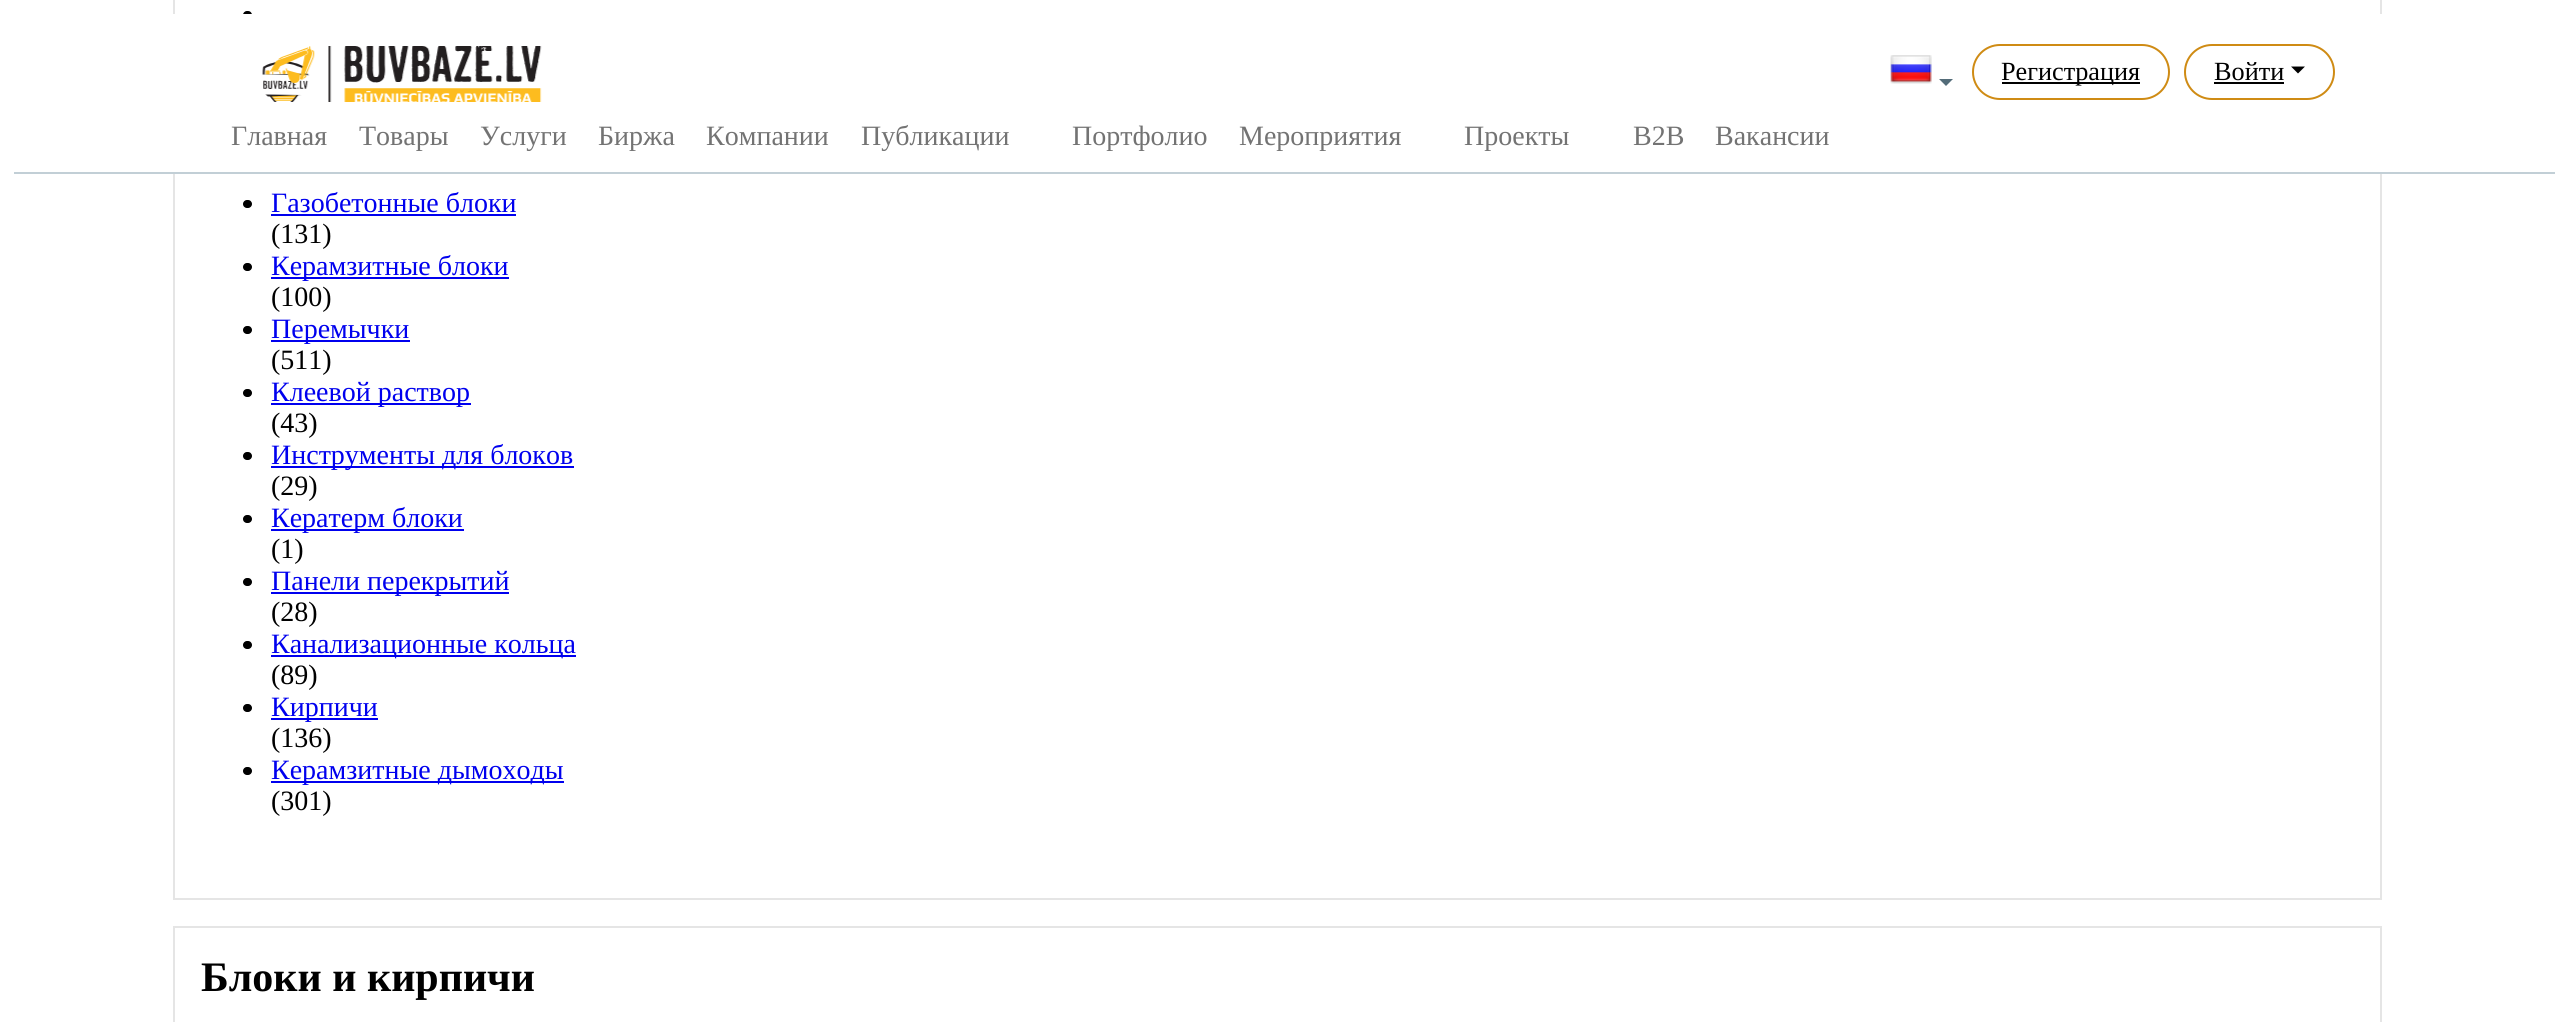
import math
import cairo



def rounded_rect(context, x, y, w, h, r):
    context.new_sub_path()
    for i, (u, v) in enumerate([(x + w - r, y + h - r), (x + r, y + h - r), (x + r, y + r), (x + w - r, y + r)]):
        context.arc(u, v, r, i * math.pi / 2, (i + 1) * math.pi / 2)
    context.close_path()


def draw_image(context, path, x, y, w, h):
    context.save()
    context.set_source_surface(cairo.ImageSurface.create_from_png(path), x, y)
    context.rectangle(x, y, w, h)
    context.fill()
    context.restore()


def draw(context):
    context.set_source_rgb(1, 1, 1)
    context.paint()
    context.rectangle(174, -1, 2207, 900)
    context.set_source_rgb(229 / 255, 229 / 255, 229 / 255)
    context.stroke()
    context.set_source_rgb(0, 0, 0)
    rounded_rect(context, 243, 11, 9, 8, 4)
    context.fill()
    context.set_source_rgb(1, 1, 1)
    context.rectangle(173, 14, 2209, 158)
    context.fill()
    context.set_source_rgb(194 / 255, 207 / 255, 214 / 255)
    context.rectangle(14, 172, 2541, 2)
    context.fill()
    draw_image(context, "images/1.png", 262, 46, 280, 56)
    draw_image(context, "images/2.png", 1890, 55, 42, 29)
    context.set_source_rgb(83 / 255, 108 / 255, 121 / 255)
    context.new_path()
    context.move_to(1939, 79)
    context.line_to(1953, 79)
    context.line_to(1946, 86)
    context.close_path()
    context.fill()
    rounded_rect(context, 1973, 45, 196, 54, 27)
    context.set_source_rgb(207 / 255, 139 / 255, 20 / 255)
    context.stroke()
    context.set_source_rgb(0, 0, 0)
    context.rectangle(2002, 82, 138, 2)
    context.fill()
    rounded_rect(context, 2185, 45, 149, 54, 27)
    context.set_source_rgb(207 / 255, 139 / 255, 20 / 255)
    context.stroke()
    context.set_source_rgb(0, 0, 0)
    context.rectangle(2214, 82, 70, 2)
    context.fill()
    context.new_path()
    context.move_to(2291, 66.5)
    context.line_to(2305, 66.5)
    context.line_to(2298, 73.5)
    context.close_path()
    context.fill()
    rounded_rect(context, 243, 200, 9, 8, 4)
    context.fill()
    context.set_source_rgb(0, 0, 238 / 255)
    context.rectangle(271, 214, 245, 2)
    context.fill()
    context.set_source_rgb(0, 0, 0)
    rounded_rect(context, 243, 263, 9, 8, 4)
    context.fill()
    context.set_source_rgb(0, 0, 238 / 255)
    context.rectangle(271, 277, 238, 2)
    context.fill()
    context.set_source_rgb(0, 0, 0)
    rounded_rect(context, 243, 326, 9, 8, 4)
    context.fill()
    context.set_source_rgb(0, 0, 238 / 255)
    context.rectangle(271, 340, 139, 2)
    context.fill()
    context.set_source_rgb(0, 0, 0)
    rounded_rect(context, 243, 389, 9, 8, 4)
    context.fill()
    context.set_source_rgb(0, 0, 238 / 255)
    context.rectangle(271, 403, 200, 2)
    context.fill()
    context.set_source_rgb(0, 0, 0)
    rounded_rect(context, 243, 452, 9, 8, 4)
    context.fill()
    context.set_source_rgb(0, 0, 238 / 255)
    context.rectangle(271, 466, 303, 2)
    context.fill()
    context.set_source_rgb(0, 0, 0)
    rounded_rect(context, 243, 515, 9, 8, 4)
    context.fill()
    context.set_source_rgb(0, 0, 238 / 255)
    context.rectangle(271, 529, 193, 2)
    context.fill()
    context.set_source_rgb(0, 0, 0)
    rounded_rect(context, 243, 578, 9, 8, 4)
    context.fill()
    context.set_source_rgb(0, 0, 238 / 255)
    context.rectangle(271, 592, 238, 2)
    context.fill()
    context.set_source_rgb(0, 0, 0)
    rounded_rect(context, 243, 641, 9, 8, 4)
    context.fill()
    context.set_source_rgb(0, 0, 238 / 255)
    context.rectangle(271, 655, 305, 2)
    context.fill()
    context.set_source_rgb(0, 0, 0)
    rounded_rect(context, 243, 704, 9, 8, 4)
    context.fill()
    context.set_source_rgb(0, 0, 238 / 255)
    context.rectangle(271, 718, 107, 2)
    context.fill()
    context.set_source_rgb(0, 0, 0)
    rounded_rect(context, 243, 767, 9, 8, 4)
    context.fill()
    context.set_source_rgb(0, 0, 238 / 255)
    context.rectangle(271, 781, 293, 2)
    context.fill()
    context.rectangle(174, 927, 2207, 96)
    context.set_source_rgb(229 / 255, 229 / 255, 229 / 255)
    context.stroke()
    context.select_font_face("Liberation Serif")
    context.set_font_size(26.25)
    context.set_source_rgb(0, 0, 0)
    context.move_to(2001, 80)
    context.show_text("Регистрация")
    context.move_to(2214, 80)
    context.show_text("Войти")
    context.set_font_size(28)
    context.set_source_rgb(115 / 255, 115 / 255, 115 / 255)
    context.move_to(231, 145)
    context.show_text("Главная")
    context.move_to(359, 145)
    context.show_text("Товары")
    context.move_to(480, 145)
    context.show_text("Услуги")
    context.move_to(598, 145)
    context.show_text("Биржа")
    context.move_to(706, 145)
    context.show_text("Компании")
    context.move_to(861, 145)
    context.show_text("Публикации")
    context.move_to(1072, 145)
    context.show_text("Портфолио")
    context.move_to(1239, 145)
    context.show_text("Мероприятия")
    context.move_to(1464, 145)
    context.show_text("Проекты")
    context.move_to(1633, 145)
    context.show_text("B2B")
    context.move_to(1715, 145)
    context.show_text("Вакансии")
    context.set_source_rgb(0, 0, 238 / 255)
    context.move_to(271, 212)
    context.show_text("Газобетонные блоки")
    context.set_source_rgb(0, 0, 0)
    context.move_to(271, 243)
    context.show_text("(131)")
    context.set_source_rgb(0, 0, 238 / 255)
    context.move_to(271, 275)
    context.show_text("Керамзитные блоки")
    context.set_source_rgb(0, 0, 0)
    context.move_to(271, 306)
    context.show_text("(100)")
    context.set_source_rgb(0, 0, 238 / 255)
    context.move_to(271, 338)
    context.show_text("Перемычки")
    context.set_source_rgb(0, 0, 0)
    context.move_to(271, 369)
    context.show_text("(511)")
    context.set_source_rgb(0, 0, 238 / 255)
    context.move_to(271, 401)
    context.show_text("Клеевой раствор")
    context.set_source_rgb(0, 0, 0)
    context.move_to(271, 432)
    context.show_text("(43)")
    context.set_source_rgb(0, 0, 238 / 255)
    context.move_to(271, 464)
    context.show_text("Инструменты для блоков")
    context.set_source_rgb(0, 0, 0)
    context.move_to(271, 495)
    context.show_text("(29)")
    context.set_source_rgb(0, 0, 238 / 255)
    context.move_to(271, 527)
    context.show_text("Кератерм блоки")
    context.set_source_rgb(0, 0, 0)
    context.move_to(271, 558)
    context.show_text("(1)")
    context.set_source_rgb(0, 0, 238 / 255)
    context.move_to(271, 590)
    context.show_text("Панели перекрытий")
    context.set_source_rgb(0, 0, 0)
    context.move_to(271, 621)
    context.show_text("(28)")
    context.set_source_rgb(0, 0, 238 / 255)
    context.move_to(271, 653)
    context.show_text("Канализационные кольца")
    context.set_source_rgb(0, 0, 0)
    context.move_to(271, 684)
    context.show_text("(89)")
    context.set_source_rgb(0, 0, 238 / 255)
    context.move_to(271, 716)
    context.show_text("Кирпичи")
    context.set_source_rgb(0, 0, 0)
    context.move_to(271, 747)
    context.show_text("(136)")
    context.set_source_rgb(0, 0, 238 / 255)
    context.move_to(271, 779)
    context.show_text("Керамзитные дымоходы")
    context.set_source_rgb(0, 0, 0)
    context.move_to(271, 810)
    context.show_text("(301)")
    context.select_font_face("Liberation Serif", cairo.FontSlant.NORMAL, cairo.FontWeight.BOLD)
    context.set_font_size(42)
    context.move_to(201, 991)
    context.show_text("Блоки и кирпичи")


surface = cairo.ImageSurface(cairo.Format.RGB24, 2555, 1022)
context = cairo.Context(surface)
options = cairo.FontOptions()
options.set_hint_metrics(cairo.HintMetrics.OFF)
options.set_hint_style(cairo.HintStyle.NONE)
context.set_font_options(options)
context.set_miter_limit(4)
draw(context)
surface.write_to_png("out.png")
